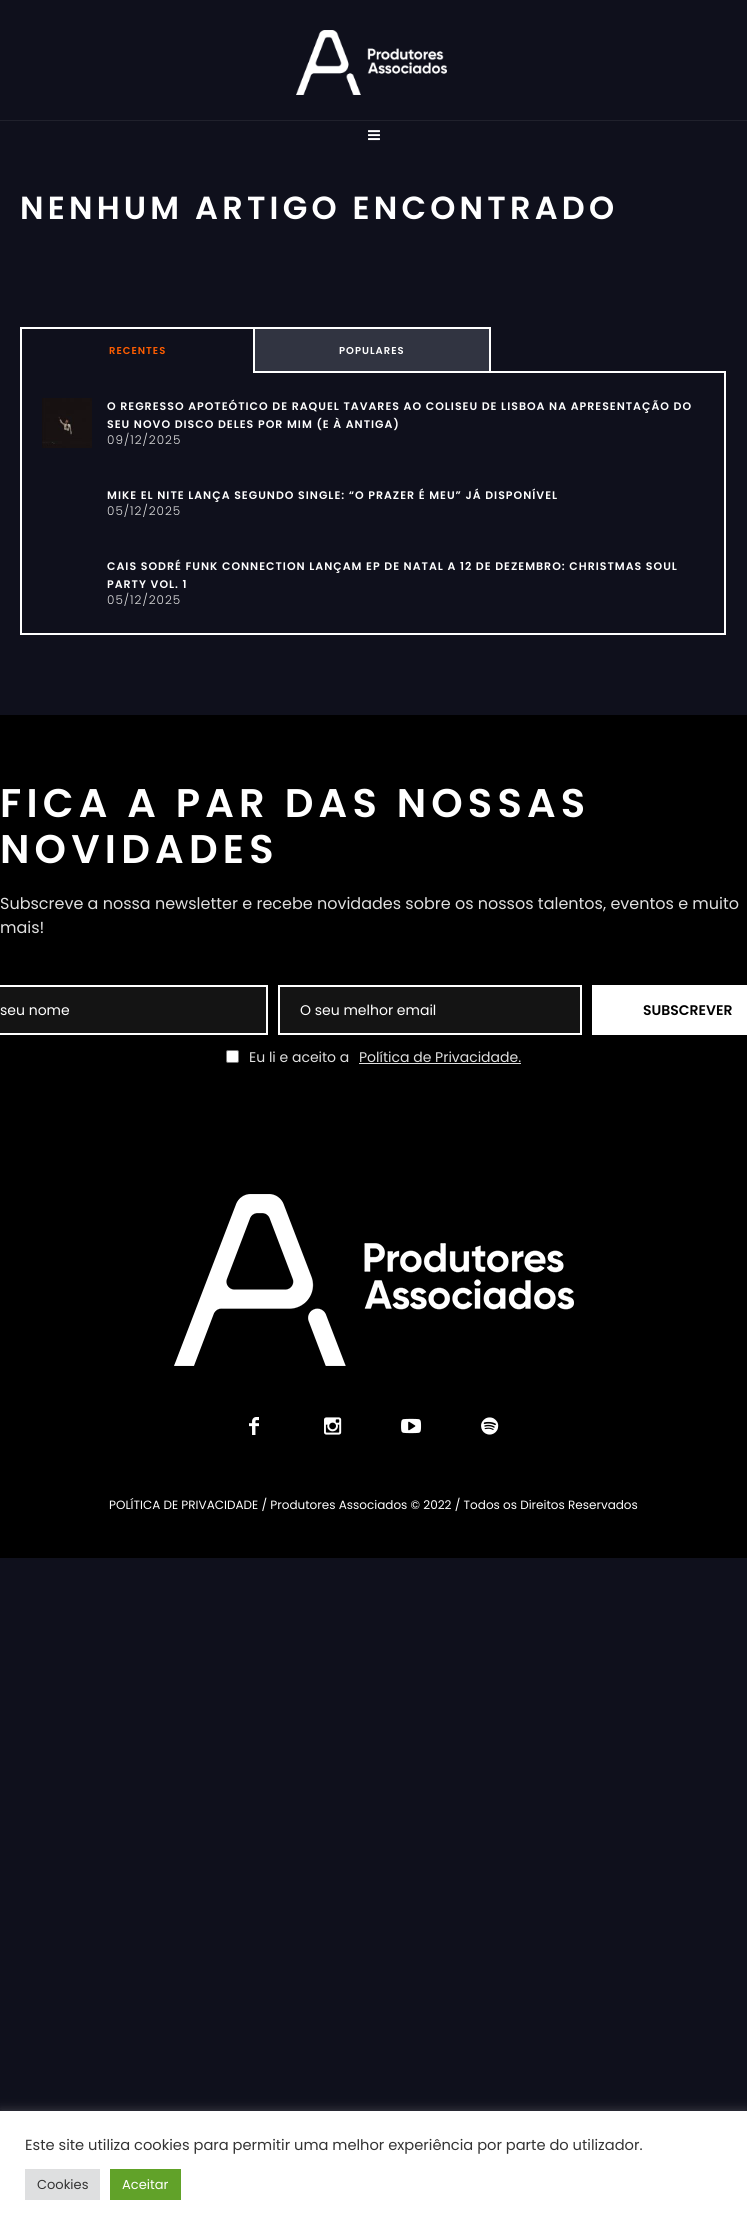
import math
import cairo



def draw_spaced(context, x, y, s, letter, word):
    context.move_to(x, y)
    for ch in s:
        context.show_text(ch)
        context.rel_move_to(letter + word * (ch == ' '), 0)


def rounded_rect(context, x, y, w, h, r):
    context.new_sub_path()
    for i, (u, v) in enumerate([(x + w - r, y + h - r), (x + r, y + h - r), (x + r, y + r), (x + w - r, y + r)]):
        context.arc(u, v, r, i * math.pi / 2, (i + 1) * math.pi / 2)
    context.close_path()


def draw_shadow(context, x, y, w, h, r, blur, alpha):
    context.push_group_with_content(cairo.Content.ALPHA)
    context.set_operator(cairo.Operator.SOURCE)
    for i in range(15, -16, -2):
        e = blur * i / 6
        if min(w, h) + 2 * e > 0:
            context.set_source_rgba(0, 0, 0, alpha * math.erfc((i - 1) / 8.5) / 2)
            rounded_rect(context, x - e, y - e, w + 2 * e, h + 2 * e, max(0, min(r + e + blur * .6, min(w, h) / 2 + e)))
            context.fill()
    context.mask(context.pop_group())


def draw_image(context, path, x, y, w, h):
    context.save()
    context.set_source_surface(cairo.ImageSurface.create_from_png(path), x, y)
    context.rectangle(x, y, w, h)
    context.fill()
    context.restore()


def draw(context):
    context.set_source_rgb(15 / 255, 16 / 255, 28 / 255)
    context.paint()
    draw_image(context, "images/1.png", 296, 30, 151, 65)
    context.set_source_rgb(32 / 255, 33 / 255, 44 / 255)
    context.rectangle(0, 120, 747, 1)
    context.fill()
    draw_image(context, "images/2.png", 368, 130, 12, 11)
    context.set_source_rgb(1, 1, 1)
    context.rectangle(20, 327, 471, 2)
    context.fill()
    context.rectangle(489, 327, 2, 46)
    context.fill()
    context.rectangle(21, 372, 704, 262)
    context.stroke()
    context.set_source_rgb(15 / 255, 16 / 255, 28 / 255)
    context.rectangle(22, 371, 231, 2)
    context.fill()
    context.set_source_rgb(1, 1, 1)
    context.rectangle(253, 327, 2, 46)
    context.fill()
    context.rectangle(20, 327, 2, 46)
    context.fill()
    context.set_source_rgb(49 / 255, 52 / 255, 65 / 255)
    context.rectangle(255, 329, 234, 42)
    context.fill()
    draw_image(context, "images/3.png", 42, 398, 50, 50)
    context.set_source_rgb(0, 0, 0)
    context.rectangle(0, 715, 747, 843)
    context.fill()
    context.set_source_rgb(20 / 255, 20 / 255, 20 / 255)
    context.rectangle(-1, 986, 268, 48)
    context.fill_preserve()
    context.set_source_rgb(1, 1, 1)
    context.stroke()
    context.set_source_rgb(20 / 255, 20 / 255, 20 / 255)
    context.rectangle(279, 986, 302, 48)
    context.fill_preserve()
    context.set_source_rgb(1, 1, 1)
    context.stroke()
    context.rectangle(592, 985, 155, 50)
    context.fill()
    rounded_rect(context, 226.5, 1050.5, 12, 12, 1.5)
    context.fill_preserve()
    context.set_source_rgb(118 / 255, 118 / 255, 118 / 255)
    context.set_line_width(1)
    context.stroke()
    context.set_source_rgb(224 / 255, 224 / 255, 224 / 255)
    context.rectangle(359, 1063, 162, 1)
    context.fill()
    draw_image(context, "images/4.png", 174, 1194, 400, 172)
    draw_image(context, "images/5.png", 249, 1417, 10, 18)
    draw_image(context, "images/6.png", 324, 1417, 18, 18)
    draw_image(context, "images/7.png", 401, 1418, 21, 16)
    draw_image(context, "images/8.png", 481, 1417, 18, 18)
    context.set_source_rgb(172 / 255, 171 / 255, 171 / 255)
    draw_shadow(context, 0, 2110, 747, 119, 0, 5, 0.3)
    context.set_source_rgb(1, 1, 1)
    context.rectangle(0, 2111, 747, 119)
    context.fill()
    context.set_source_rgb(222 / 255, 223 / 255, 224 / 255)
    context.rectangle(25, 2169, 75, 31)
    context.fill()
    context.set_source_rgb(97 / 255, 162 / 255, 41 / 255)
    context.rectangle(110, 2169, 71, 31)
    context.fill()
    context.select_font_face("Poppins SemiBold")
    context.set_font_size(32)
    context.set_source_rgb(1, 1, 1)
    draw_spaced(context, 20, 219, "NENHUM ARTIGO ENCONTRADO", 4.2, 0)
    context.set_font_size(10)
    context.set_source_rgb(1, 93 / 255, 0)
    draw_spaced(context, 109, 354, "RECENTES", 1, 0)
    context.set_source_rgb(1, 1, 1)
    draw_spaced(context, 339, 354, "POPULARES", 1, 0)
    context.set_font_size(11)
    draw_spaced(context, 107, 410, "O REGRESSO APOTEÓTICO DE RAQUEL TAVARES AO COLISEU DE LISBOA NA APRESENTAÇÃO DO", 1, 0)
    draw_spaced(context, 107, 428, "SEU NOVO DISCO DELES POR MIM (E À ANTIGA)", 1, 0)
    context.select_font_face("Poppins Light")
    context.set_font_size(12)
    context.set_source_rgb(224 / 255, 224 / 255, 224 / 255)
    draw_spaced(context, 107, 444, "09/12/2025", 1, 0)
    context.select_font_face("Poppins SemiBold")
    context.set_font_size(11)
    context.set_source_rgb(1, 1, 1)
    draw_spaced(context, 107, 499, "MIKE EL NITE LANÇA SEGUNDO SINGLE: “O PRAZER É MEU” JÁ DISPONÍVEL", 1, 0)
    context.select_font_face("Poppins Light")
    context.set_font_size(12)
    context.set_source_rgb(224 / 255, 224 / 255, 224 / 255)
    draw_spaced(context, 107, 515, "05/12/2025", 1, 0)
    context.select_font_face("Poppins SemiBold")
    context.set_font_size(11)
    context.set_source_rgb(1, 1, 1)
    draw_spaced(context, 107, 570, "CAIS SODRÉ FUNK CONNECTION LANÇAM EP DE NATAL A 12 DE DEZEMBRO: CHRISTMAS SOUL", 1, 0)
    draw_spaced(context, 107, 588, "PARTY VOL. 1", 1, 0)
    context.select_font_face("Poppins Light")
    context.set_font_size(12)
    context.set_source_rgb(224 / 255, 224 / 255, 224 / 255)
    draw_spaced(context, 107, 604, "05/12/2025", 1, 0)
    context.select_font_face("Poppins SemiBold")
    context.set_font_size(40)
    context.set_source_rgb(1, 1, 1)
    draw_spaced(context, 0, 817, "FICA A PAR DAS NOSSAS", 5.2, 0)
    draw_spaced(context, 0, 863, "NOVIDADES", 5.2, 0)
    context.select_font_face("Poppins")
    context.set_font_size(16)
    context.set_source_rgb(224 / 255, 224 / 255, 224 / 255)
    context.move_to(0, 909)
    context.show_text("Subscreve a nossa newsletter e recebe novidades sobre os nossos talentos, eventos e muito")
    context.move_to(0, 933)
    context.show_text("mais!")
    context.set_font_size(14)
    context.set_source_rgb(1, 1, 1)
    context.move_to(0, 1015)
    context.show_text("seu nome")
    context.move_to(300, 1015)
    context.show_text("O seu melhor email")
    context.select_font_face("Poppins SemiBold")
    context.set_source_rgb(0, 0, 0)
    context.move_to(643, 1015)
    context.show_text("SUBSCREVER")
    context.select_font_face("Poppins")
    context.set_source_rgb(224 / 255, 224 / 255, 224 / 255)
    context.move_to(249, 1062)
    context.show_text("Eu li e aceito a")
    context.move_to(359, 1062)
    context.show_text("Política de Privacidade.")
    context.set_font_size(12)
    context.set_source_rgb(1, 1, 1)
    context.move_to(109, 1509)
    context.show_text("POLÍTICA DE PRIVACIDADE / Produtores Associados © 2022 / Todos os Direitos Reservados")
    context.set_font_size(14.65)
    context.set_source_rgb(51 / 255, 51 / 255, 51 / 255)
    context.move_to(25, 2150)
    context.show_text("Este site utiliza cookies para permitir uma melhor experiência por parte do utilizador.")
    context.set_font_size(13)
    context.move_to(37, 2189)
    context.show_text("Cookies")
    context.set_source_rgb(1, 1, 1)
    context.move_to(122, 2189)
    context.show_text("Aceitar")


surface = cairo.ImageSurface(cairo.Format.RGB24, 747, 2230)
context = cairo.Context(surface)
options = cairo.FontOptions()
options.set_hint_metrics(cairo.HintMetrics.OFF)
options.set_hint_style(cairo.HintStyle.NONE)
context.set_font_options(options)
context.set_miter_limit(4)
draw(context)
surface.write_to_png("out.png")
